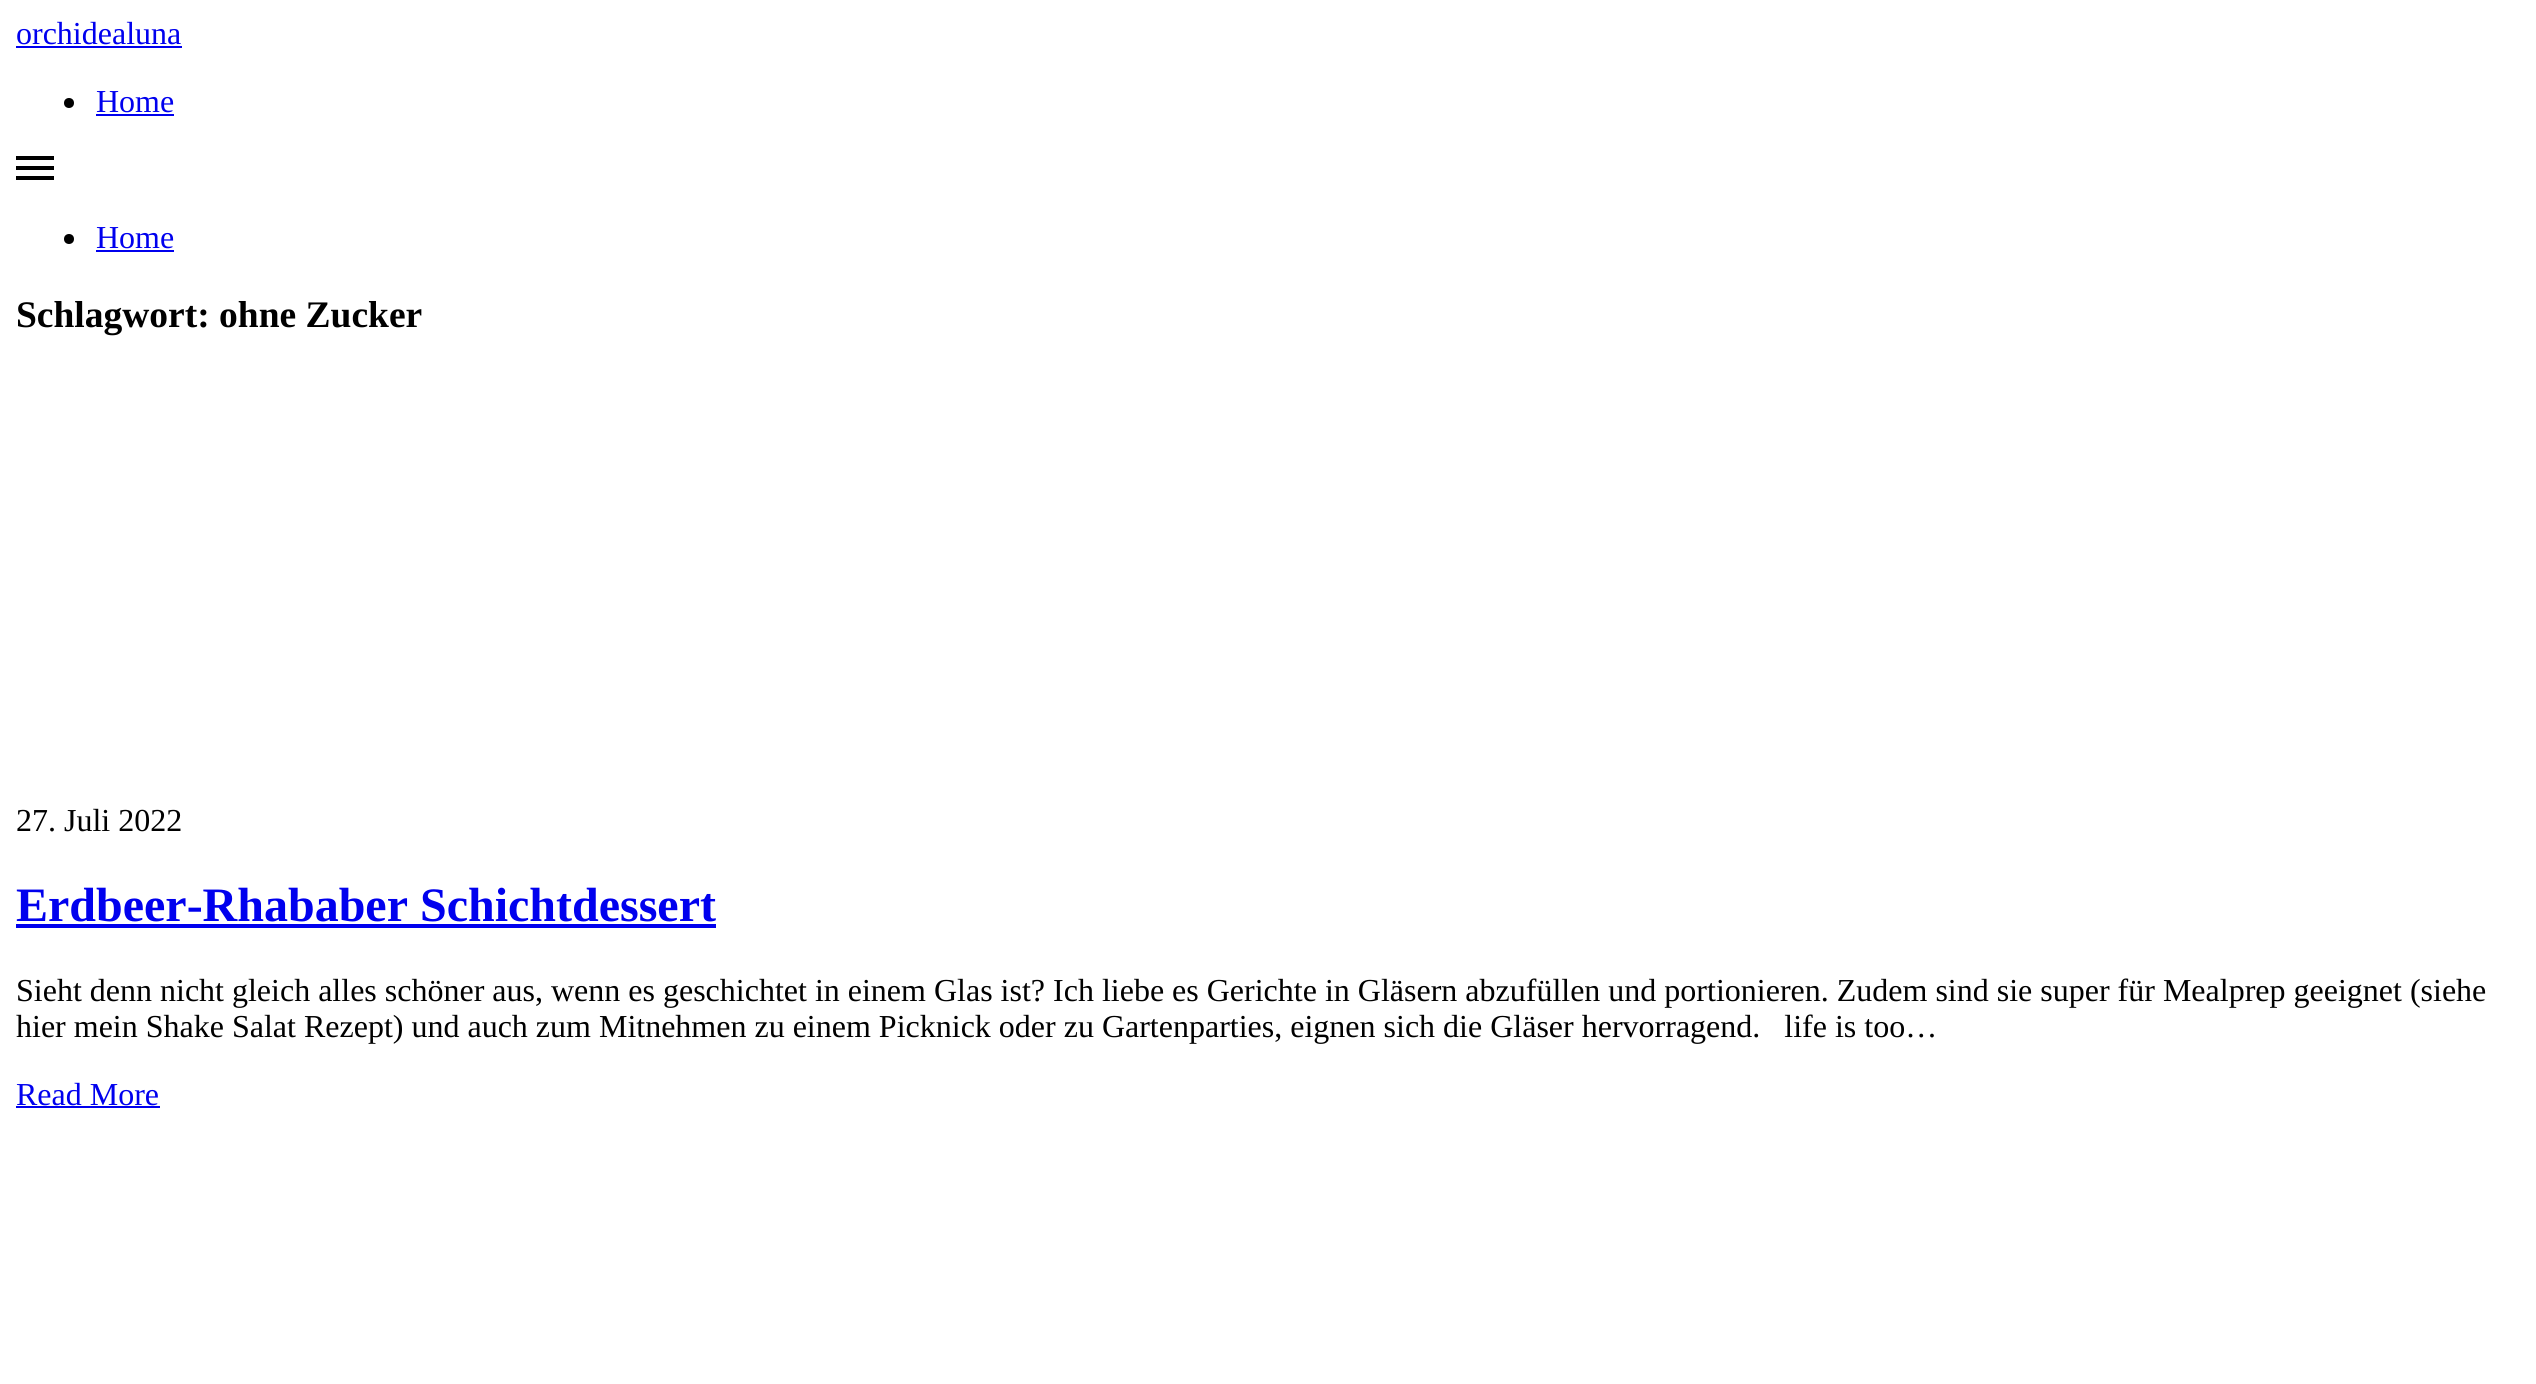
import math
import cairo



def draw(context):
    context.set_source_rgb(1, 1, 1)
    context.paint()
    context.set_source_rgb(0, 0, 238 / 255)
    context.rectangle(16, 46, 166, 2)
    context.fill()
    context.set_source_rgb(0, 0, 0)
    context.arc(69, 103, 5, 0, 2 * math.pi)
    context.fill()
    context.set_source_rgb(0, 0, 238 / 255)
    context.rectangle(96, 114, 78, 2)
    context.fill()
    context.set_source_rgb(0, 0, 0)
    context.rectangle(16, 156, 38, 4)
    context.fill()
    context.rectangle(16, 166, 38, 4)
    context.fill()
    context.rectangle(16, 176, 38, 4)
    context.fill()
    context.arc(69, 239, 5, 0, 2 * math.pi)
    context.fill()
    context.set_source_rgb(0, 0, 238 / 255)
    context.rectangle(96, 250, 78, 2)
    context.fill()
    context.rectangle(16, 924, 700, 4)
    context.fill()
    context.rectangle(16, 1106, 144, 2)
    context.fill()
    context.select_font_face("Liberation Serif")
    context.set_font_size(32)
    context.move_to(16, 44)
    context.show_text("orchidealuna")
    context.move_to(96, 112)
    context.show_text("Home")
    context.move_to(96, 248)
    context.show_text("Home")
    context.select_font_face("Liberation Serif", cairo.FontSlant.NORMAL, cairo.FontWeight.BOLD)
    context.set_font_size(37.5)
    context.set_source_rgb(0, 0, 0)
    context.move_to(16, 327)
    context.show_text("Schlagwort: ohne Zucker")
    context.select_font_face("Liberation Serif")
    context.set_font_size(32)
    context.move_to(16, 831)
    context.show_text("27. Juli 2022")
    context.select_font_face("Liberation Serif", cairo.FontSlant.NORMAL, cairo.FontWeight.BOLD)
    context.set_font_size(48)
    context.set_source_rgb(0, 0, 238 / 255)
    context.move_to(16, 921)
    context.show_text("Erdbeer-Rhababer Schichtdessert")
    context.select_font_face("Liberation Serif")
    context.set_font_size(32)
    context.set_source_rgb(0, 0, 0)
    context.move_to(16, 1001)
    context.show_text("Sieht denn nicht gleich alles schöner aus, wenn es geschichtet in einem Glas ist? Ich liebe es Gerichte in Gläsern abzufüllen und portionieren. Zudem sind sie super für Mealprep geeignet (siehe")
    context.move_to(16, 1037)
    context.show_text("hier mein Shake Salat Rezept) und auch zum Mitnehmen zu einem Picknick oder zu Gartenparties, eignen sich die Gläser hervorragend.   life is too…")
    context.set_source_rgb(0, 0, 238 / 255)
    context.move_to(16, 1105)
    context.show_text("Read More")


surface = cairo.ImageSurface(cairo.Format.RGB24, 2536, 1384)
context = cairo.Context(surface)
options = cairo.FontOptions()
options.set_hint_metrics(cairo.HintMetrics.OFF)
options.set_hint_style(cairo.HintStyle.NONE)
context.set_font_options(options)
context.set_miter_limit(4)
draw(context)
surface.write_to_png("out.png")
